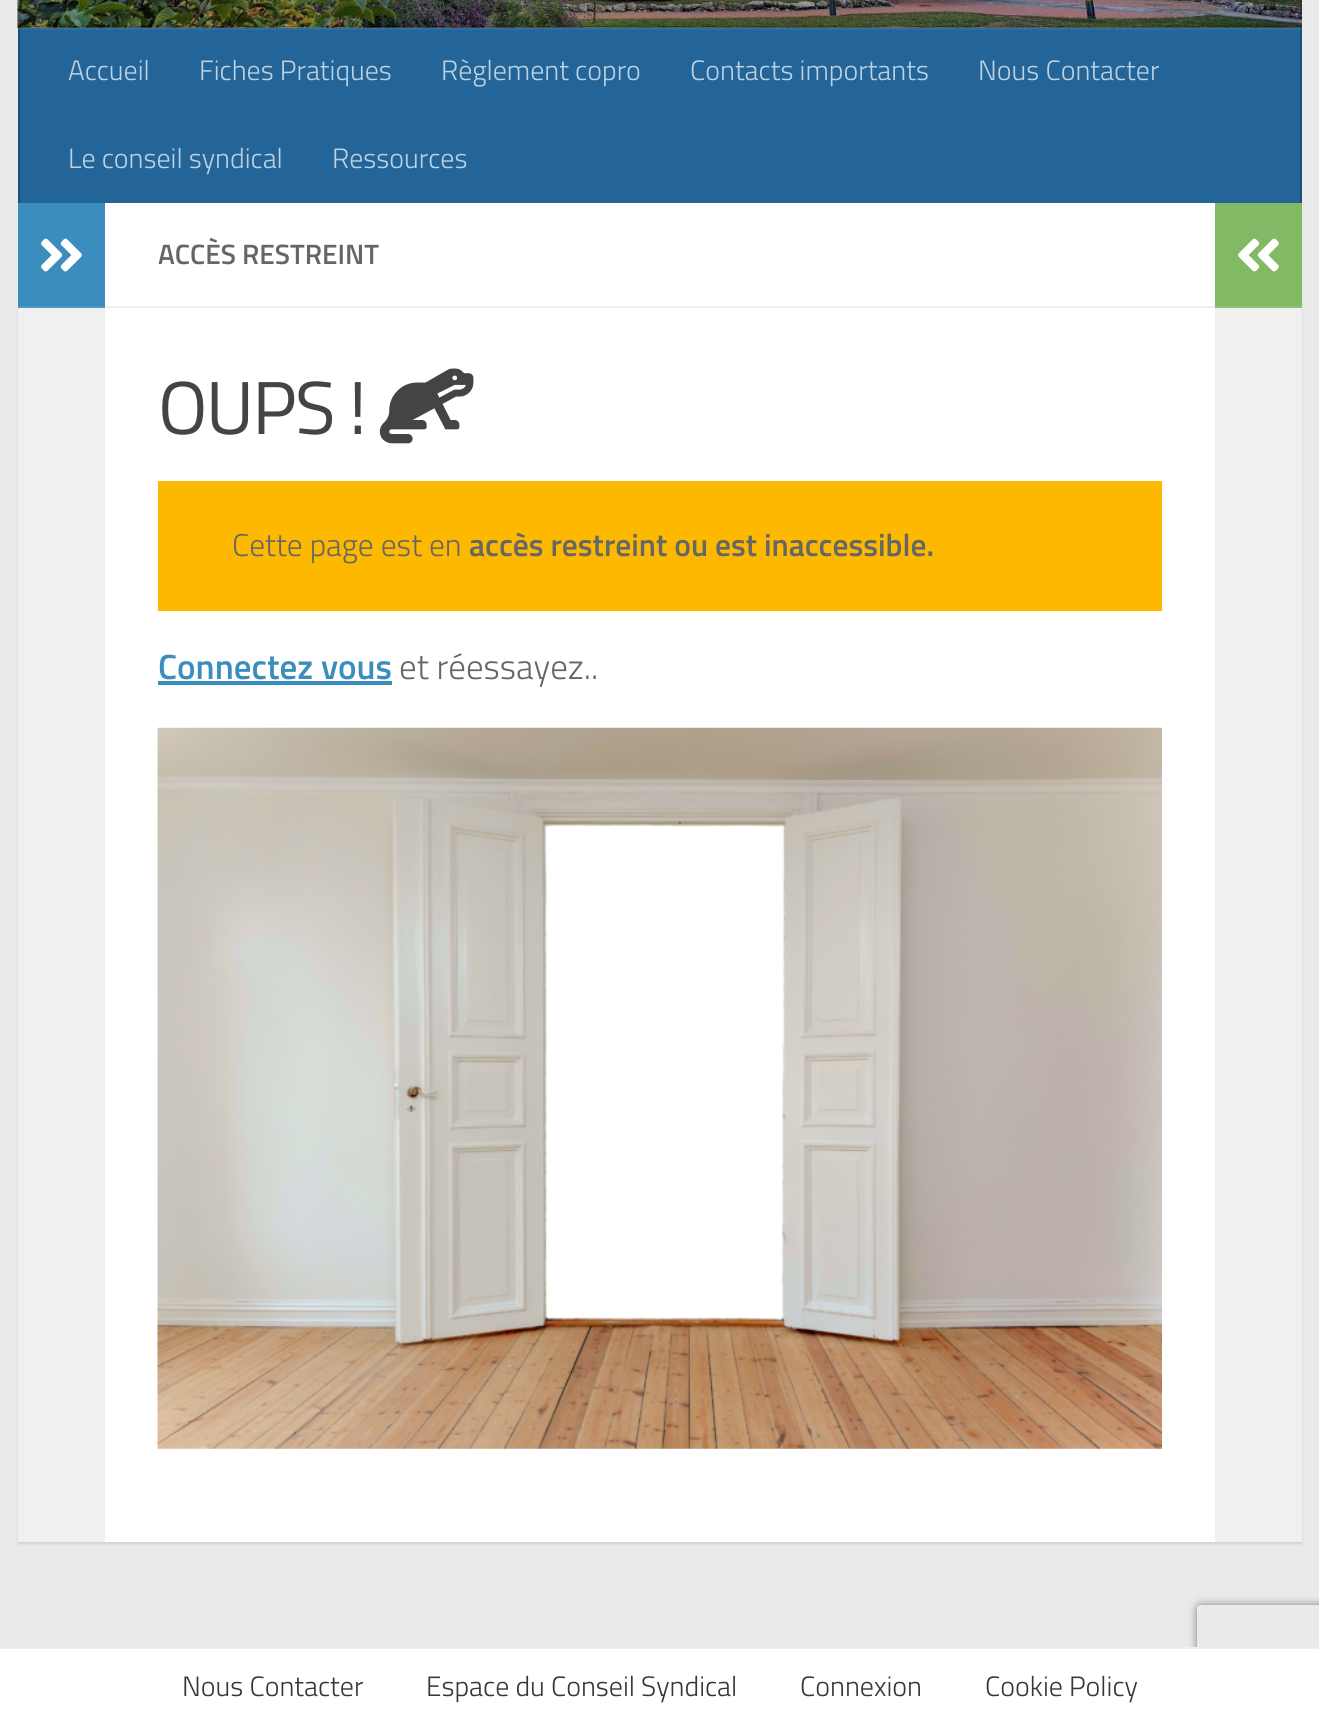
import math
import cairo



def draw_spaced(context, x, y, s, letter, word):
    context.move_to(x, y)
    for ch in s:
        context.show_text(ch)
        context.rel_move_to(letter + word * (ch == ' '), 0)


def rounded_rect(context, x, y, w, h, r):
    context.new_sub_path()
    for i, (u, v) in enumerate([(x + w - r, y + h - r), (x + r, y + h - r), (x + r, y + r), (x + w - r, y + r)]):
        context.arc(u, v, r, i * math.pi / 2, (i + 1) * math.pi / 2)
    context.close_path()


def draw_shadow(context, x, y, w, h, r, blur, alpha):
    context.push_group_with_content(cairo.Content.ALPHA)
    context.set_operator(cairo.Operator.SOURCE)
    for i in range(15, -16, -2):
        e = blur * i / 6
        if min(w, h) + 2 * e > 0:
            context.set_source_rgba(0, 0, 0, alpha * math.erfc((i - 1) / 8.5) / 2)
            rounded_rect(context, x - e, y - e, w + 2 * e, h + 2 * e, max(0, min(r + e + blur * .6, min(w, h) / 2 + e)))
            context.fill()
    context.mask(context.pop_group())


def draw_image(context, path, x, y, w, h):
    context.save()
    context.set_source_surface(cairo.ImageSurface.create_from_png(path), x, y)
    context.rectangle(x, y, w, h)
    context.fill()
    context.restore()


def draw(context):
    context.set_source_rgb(234 / 255, 234 / 255, 234 / 255)
    context.paint()
    context.set_source_rgb(0, 0, 0)
    draw_shadow(context, 18, 205, 1284, 1339, 0, 1, 0.1)
    context.set_source_rgb(234 / 255, 234 / 255, 234 / 255)
    context.rectangle(17, 204, 1286, 104)
    context.fill()
    draw_image(context, "images/1.png", 17, 0, 1285, 28)
    context.set_source_rgba(0, 0, 0, 0.2)
    context.rectangle(18, 26, 1284, 2)
    context.fill()
    context.set_source_rgb(35 / 255, 101 / 255, 153 / 255)
    context.rectangle(20, 30, 1280, 173)
    context.fill()
    context.set_source_rgb(46 / 255, 109 / 255, 158 / 255)
    context.rectangle(18, 28, 1284, 2)
    context.fill()
    context.set_source_rgb(28 / 255, 81 / 255, 122 / 255)
    context.rectangle(1300, 28, 2, 175)
    context.fill()
    context.set_source_rgb(39 / 255, 90 / 255, 129 / 255)
    context.rectangle(1300, 28, 2, 2)
    context.fill()
    context.set_source_rgb(28 / 255, 81 / 255, 122 / 255)
    context.rectangle(18, 28, 2, 175)
    context.fill()
    context.set_source_rgb(39 / 255, 90 / 255, 129 / 255)
    context.rectangle(18, 28, 2, 2)
    context.fill()
    context.set_source_rgb(1, 1, 1)
    context.rectangle(105, 203, 1110, 1339)
    context.fill()
    context.set_source_rgb(240 / 255, 240 / 255, 240 / 255)
    context.rectangle(18, 308, 87, 1234)
    context.fill()
    context.set_source_rgb(59 / 255, 141 / 255, 189 / 255)
    context.rectangle(18, 203, 87, 103)
    context.fill()
    context.set_source_rgb(79 / 255, 152 / 255, 196 / 255)
    context.rectangle(18, 306, 87, 2)
    context.fill()
    draw_image(context, "images/2.png", 41, 238, 41, 34)
    context.set_source_rgb(238 / 255, 238 / 255, 238 / 255)
    context.rectangle(105, 306, 1110, 2)
    context.fill()
    draw_image(context, "images/3.png", 379, 368, 95, 76)
    context.set_source_rgb(252 / 255, 185 / 255, 0)
    context.rectangle(158, 481, 1004, 130)
    context.fill()
    context.set_source_rgb(59 / 255, 141 / 255, 189 / 255)
    context.rectangle(158, 681, 234, 4)
    context.fill()
    draw_image(context, "images/4.png", 157, 727, 1005, 722)
    context.set_source_rgb(130 / 255, 185 / 255, 101 / 255)
    context.rectangle(1215, 203, 87, 103)
    context.fill()
    context.set_source_rgb(143 / 255, 192 / 255, 116 / 255)
    context.rectangle(1215, 306, 87, 2)
    context.fill()
    draw_image(context, "images/5.png", 1238, 238, 41, 34)
    context.set_source_rgb(240 / 255, 240 / 255, 240 / 255)
    context.rectangle(1215, 308, 87, 1234)
    context.fill()
    context.save()
    context.set_fill_rule(cairo.FillRule.EVEN_ODD)
    context.new_path()
    context.move_to(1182, 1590)
    context.line_to(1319, 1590)
    context.line_to(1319, 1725)
    context.line_to(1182, 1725)
    context.close_path()
    context.move_to(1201, 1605)
    context.line_to(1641, 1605)
    context.curve_to(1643, 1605, 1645, 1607, 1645, 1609)
    context.line_to(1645, 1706)
    context.curve_to(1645, 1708, 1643, 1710, 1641, 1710)
    context.line_to(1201, 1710)
    context.curve_to(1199, 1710, 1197, 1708, 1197, 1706)
    context.line_to(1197, 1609)
    context.curve_to(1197, 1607, 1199, 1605, 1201, 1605)
    context.close_path()
    context.clip()
    context.set_source_rgb(128 / 255, 128 / 255, 128 / 255)
    draw_shadow(context, 1197, 1605, 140, 105, 4, 4.5, 1)
    context.restore()
    context.set_source_rgb(1, 1, 1)
    context.rectangle(0, 1649, 1319, 85)
    context.fill()
    context.set_source_rgb(238 / 255, 238 / 255, 238 / 255)
    context.rectangle(0, 1647, 1319, 2)
    context.fill()
    context.select_font_face("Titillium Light")
    context.set_font_size(28)
    context.set_source_rgb(189 / 255, 209 / 255, 224 / 255)
    context.move_to(68, 80)
    context.show_text("Accueil")
    context.move_to(199, 80)
    context.show_text("Fiches Pratiques")
    context.move_to(441, 80)
    context.show_text("Règlement copro")
    context.move_to(690, 80)
    context.show_text("Contacts importants")
    context.move_to(978, 80)
    context.show_text("Nous Contacter")
    context.move_to(68, 168)
    context.show_text("Le conseil syndical")
    context.move_to(332, 168)
    context.show_text("Ressources")
    context.select_font_face("Titillium SemiBold")
    context.set_source_rgb(102 / 255, 102 / 255, 102 / 255)
    context.move_to(158, 264)
    context.show_text("ACCÈS RESTREINT")
    context.select_font_face("Titillium")
    context.set_font_size(75)
    context.set_source_rgb(68 / 255, 68 / 255, 68 / 255)
    draw_spaced(context, 158, 434, "OUPS !", -1.75, 0)
    context.select_font_face("Titillium Light")
    context.set_font_size(31.5)
    context.set_source_rgb(102 / 255, 102 / 255, 102 / 255)
    context.move_to(232, 556)
    context.show_text("Cette page est en")
    context.select_font_face("Titillium SemiBold")
    context.move_to(469, 556)
    context.show_text("accès restreint ou est inaccessible.")
    context.set_font_size(35)
    context.set_source_rgb(59 / 255, 141 / 255, 189 / 255)
    context.move_to(158, 679)
    context.show_text("Connectez vous")
    context.select_font_face("Titillium Light")
    context.set_source_rgb(102 / 255, 102 / 255, 102 / 255)
    context.move_to(399, 679)
    context.show_text("et réessayez..")
    context.set_font_size(28)
    context.set_source_rgb(51 / 255, 54 / 255, 59 / 255)
    context.move_to(182, 1696)
    context.show_text("Nous Contacter")
    context.move_to(426, 1696)
    context.show_text("Espace du Conseil Syndical")
    context.move_to(800, 1696)
    context.show_text("Connexion")
    context.move_to(985, 1696)
    context.show_text("Cookie Policy")


surface = cairo.ImageSurface(cairo.Format.RGB24, 1319, 1734)
context = cairo.Context(surface)
options = cairo.FontOptions()
options.set_hint_metrics(cairo.HintMetrics.OFF)
options.set_hint_style(cairo.HintStyle.NONE)
context.set_font_options(options)
context.set_miter_limit(4)
draw(context)
surface.write_to_png("out.png")
